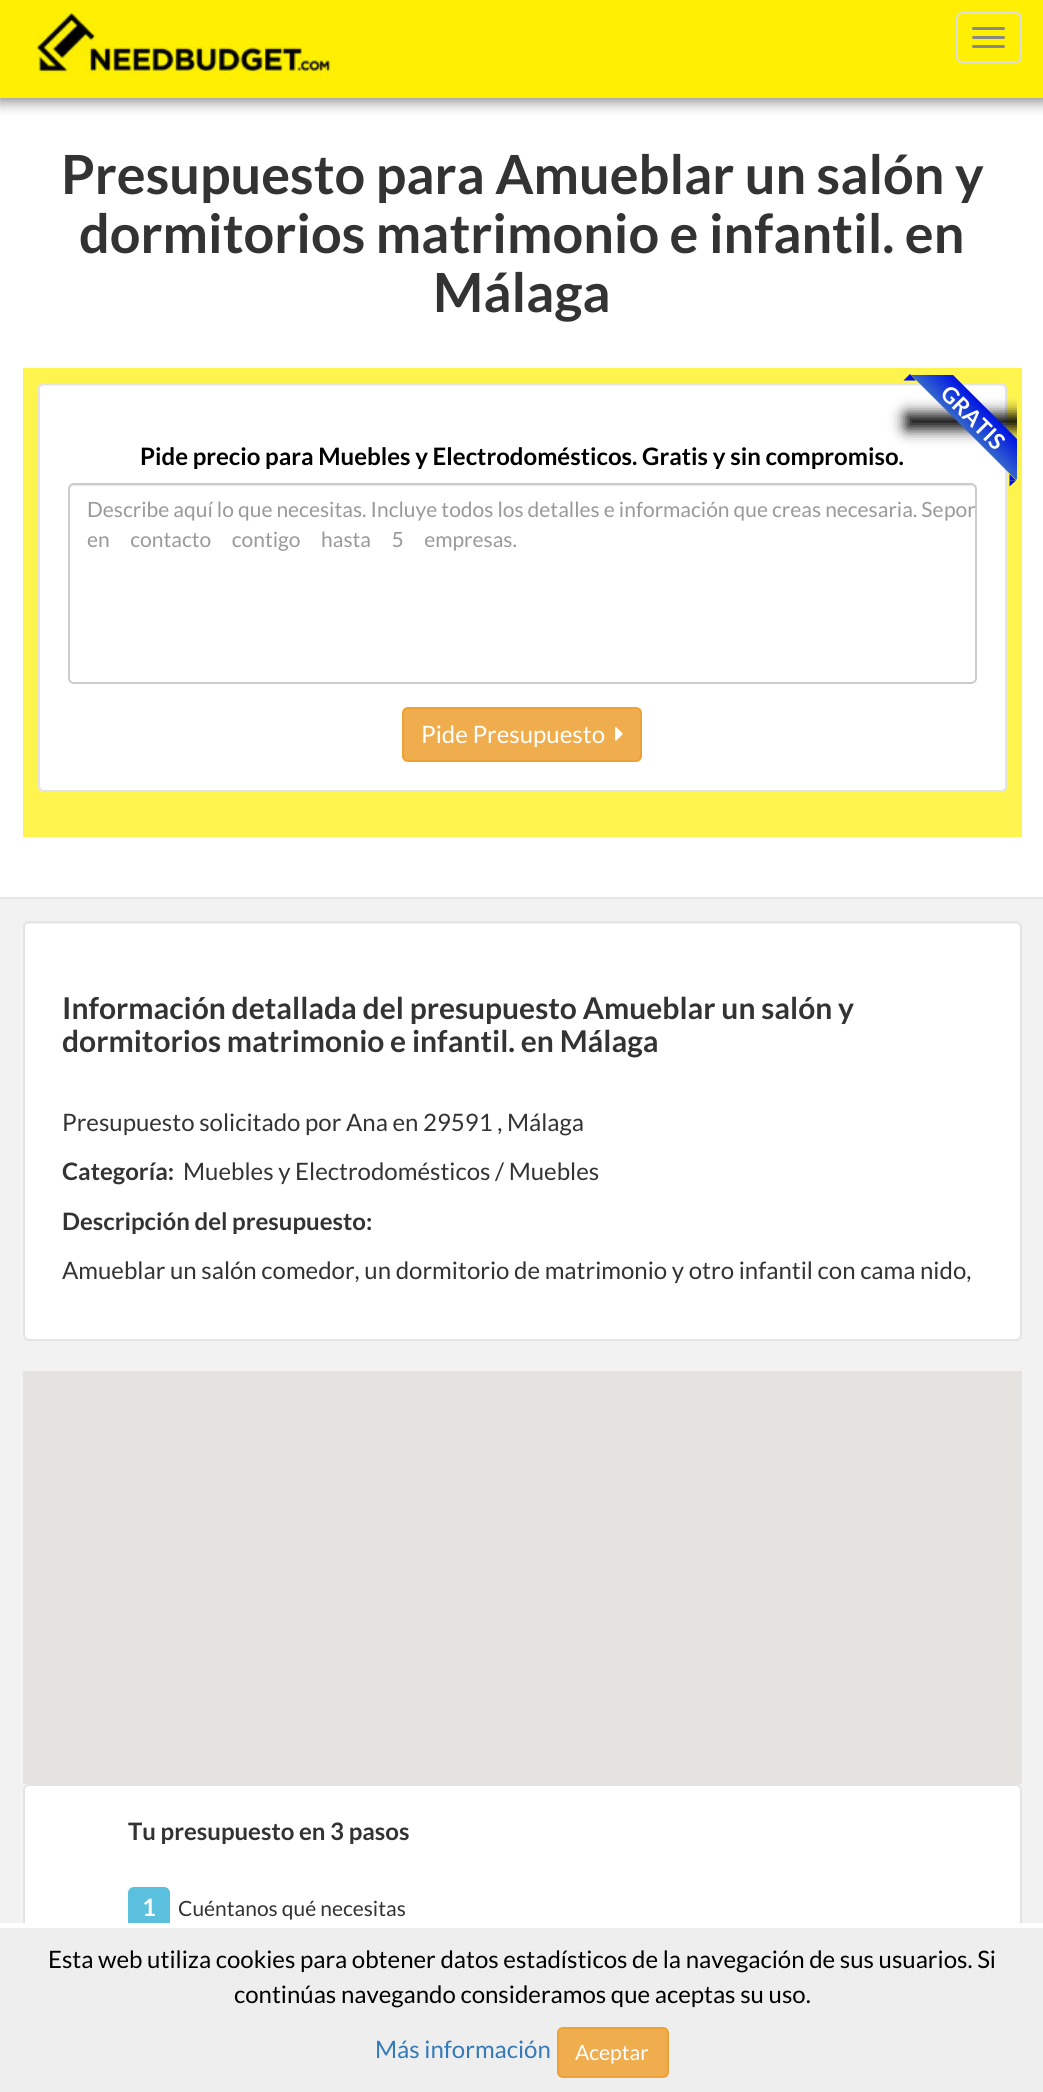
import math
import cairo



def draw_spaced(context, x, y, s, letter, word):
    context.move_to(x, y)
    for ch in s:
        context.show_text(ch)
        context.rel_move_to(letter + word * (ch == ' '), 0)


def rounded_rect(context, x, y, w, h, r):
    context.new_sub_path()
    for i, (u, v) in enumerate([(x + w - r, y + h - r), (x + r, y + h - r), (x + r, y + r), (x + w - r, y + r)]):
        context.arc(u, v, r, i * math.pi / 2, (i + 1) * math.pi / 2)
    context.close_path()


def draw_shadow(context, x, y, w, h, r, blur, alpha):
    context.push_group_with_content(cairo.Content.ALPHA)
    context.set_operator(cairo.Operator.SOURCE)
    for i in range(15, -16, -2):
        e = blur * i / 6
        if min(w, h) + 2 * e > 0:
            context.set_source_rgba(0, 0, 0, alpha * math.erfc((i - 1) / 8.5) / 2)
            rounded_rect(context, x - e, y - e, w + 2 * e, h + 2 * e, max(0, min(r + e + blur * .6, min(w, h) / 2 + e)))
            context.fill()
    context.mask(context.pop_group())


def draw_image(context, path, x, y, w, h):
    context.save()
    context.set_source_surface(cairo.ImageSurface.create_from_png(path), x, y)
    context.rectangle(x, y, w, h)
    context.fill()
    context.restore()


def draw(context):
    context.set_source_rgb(1, 1, 1)
    context.paint()
    context.set_source_rgb(128 / 255, 128 / 255, 128 / 255)
    draw_shadow(context, -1, 0, 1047, 101, 0, 7.5, 1)
    context.set_source_rgb(1, 239 / 255, 3 / 255)
    context.rectangle(0, 0, 1043, 98)
    context.fill()
    draw_image(context, "images/1.png", 37, 11, 295, 64)
    rounded_rect(context, 957, 13, 64, 49, 5)
    context.set_source_rgb(221 / 255, 221 / 255, 221 / 255)
    context.stroke()
    context.set_source_rgb(136 / 255, 136 / 255, 136 / 255)
    rounded_rect(context, 972, 27, 33, 3, 1.5)
    context.fill()
    rounded_rect(context, 972, 36, 33, 3, 1.5)
    context.fill()
    rounded_rect(context, 972, 45, 33, 3, 1.5)
    context.fill()
    context.set_source_rgb(231 / 255, 231 / 255, 231 / 255)
    context.rectangle(0, 897, 1043, 2)
    context.fill()
    context.set_source_rgb(1, 243 / 255, 78 / 255)
    context.rectangle(23, 368, 999, 469)
    context.fill()
    context.set_source_rgb(1, 1, 1)
    rounded_rect(context, 38, 383, 969, 409, 6)
    context.fill()
    context.set_source_rgb(242 / 255, 242 / 255, 242 / 255)
    context.new_path()
    context.move_to(44, 386)
    context.line_to(1000, 386)
    context.curve_to(1003, 386, 1005, 388, 1005, 390)
    context.curve_to(1005, 387, 1003, 384, 1000, 384)
    context.line_to(44, 384)
    context.curve_to(41, 384, 39, 387, 39, 390)
    context.curve_to(39, 388, 41, 386, 44, 386)
    context.close_path()
    context.fill()
    rounded_rect(context, 39, 384, 967, 407, 5)
    context.set_source_rgb(227 / 255, 227 / 255, 227 / 255)
    context.stroke()
    context.save()
    context.rectangle(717, 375, 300, 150)
    context.clip()
    context.set_source_rgb(0, 0, 0)
    draw_shadow(context, 906, 414, 135, 15, 0, 7.5, 1)
    context.restore()
    context.save()
    context.rectangle(717, 375, 300, 150)
    context.clip()
    gradient = cairo.LinearGradient(984, 406, 963, 427)
    gradient.add_color_stop_rgba(0, 0, 18 / 255, 229 / 255, 1)
    gradient.add_color_stop_rgba(1, 51 / 255, 102 / 255, 204 / 255, 1)
    context.set_source(gradient)
    context.new_path()
    context.move_to(931, 353)
    context.line_to(1037, 459)
    context.line_to(1016, 480)
    context.line_to(910, 374)
    context.close_path()
    context.fill()
    context.restore()
    context.set_source_rgb(0, 18 / 255, 229 / 255)
    context.new_path()
    context.move_to(910, 374)
    context.line_to(916, 380.5)
    context.line_to(910, 380.5)
    context.close_path()
    context.move_to(903.5, 380.5)
    context.line_to(910, 374)
    context.line_to(910, 380.5)
    context.close_path()
    context.fill()
    context.new_path()
    context.move_to(1009.5, 474)
    context.line_to(1016, 480.5)
    context.line_to(1009.5, 480.5)
    context.close_path()
    context.fill()
    context.new_path()
    context.move_to(1016, 480.5)
    context.line_to(1009.5, 486.5)
    context.line_to(1009.5, 480.5)
    context.close_path()
    context.fill()
    context.set_source_rgb(236 / 255, 236 / 255, 236 / 255)
    context.new_path()
    context.move_to(74, 486)
    context.line_to(970, 486)
    context.curve_to(973, 486, 975, 488, 975, 490)
    context.curve_to(975, 487, 973, 485, 970, 485)
    context.line_to(74, 485)
    context.curve_to(71, 485, 69, 487, 69, 490)
    context.curve_to(69, 488, 71, 486, 74, 486)
    context.close_path()
    context.fill()
    rounded_rect(context, 69, 484, 907, 199, 5)
    context.set_source_rgb(204 / 255, 204 / 255, 204 / 255)
    context.stroke()
    context.set_source_rgb(240 / 255, 173 / 255, 78 / 255)
    rounded_rect(context, 403, 708, 238, 53, 5)
    context.fill_preserve()
    context.set_source_rgb(238 / 255, 162 / 255, 54 / 255)
    context.stroke()
    draw_image(context, "images/2.png", 615, 727, 8, 14)
    context.set_source_rgb(242 / 255, 242 / 255, 242 / 255)
    context.rectangle(0, 899, 1043, 1024)
    context.fill()
    context.set_source_rgb(1, 1, 1)
    rounded_rect(context, 23, 921, 999, 420, 6)
    context.fill()
    context.set_source_rgb(242 / 255, 242 / 255, 242 / 255)
    context.new_path()
    context.move_to(28, 924)
    context.line_to(1016, 924)
    context.curve_to(1018, 924, 1020, 926, 1020, 928)
    context.curve_to(1020, 925, 1018, 923, 1015, 923)
    context.line_to(29, 923)
    context.curve_to(26, 923, 24, 925, 24, 928)
    context.curve_to(24, 926, 26, 924, 28, 924)
    context.close_path()
    context.fill()
    rounded_rect(context, 24, 922, 997, 418, 5)
    context.set_source_rgb(227 / 255, 227 / 255, 227 / 255)
    context.stroke()
    context.set_source_rgb(229 / 255, 227 / 255, 223 / 255)
    context.rectangle(23, 1371, 999, 413)
    context.fill()
    context.set_source_rgb(1, 1, 1)
    rounded_rect(context, 23, 1784, 999, 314, 6)
    context.fill()
    context.set_source_rgb(242 / 255, 242 / 255, 242 / 255)
    context.new_path()
    context.move_to(28, 1786)
    context.line_to(1016, 1786)
    context.curve_to(1018, 1786, 1020, 1789, 1020, 1791)
    context.curve_to(1020, 1788, 1018, 1785, 1015, 1785)
    context.line_to(29, 1785)
    context.curve_to(26, 1785, 24, 1788, 24, 1791)
    context.curve_to(24, 1789, 26, 1786, 28, 1786)
    context.close_path()
    context.fill()
    rounded_rect(context, 24, 1785, 997, 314, 5)
    context.set_source_rgb(227 / 255, 227 / 255, 227 / 255)
    context.stroke()
    context.set_source_rgb(91 / 255, 192 / 255, 222 / 255)
    rounded_rect(context, 128, 1887, 42, 41, 6)
    context.fill()
    context.set_source_rgb(1, 1, 1)
    context.rectangle(23, 1923, 999, 5)
    context.fill()
    context.set_source_rgb(238 / 255, 238 / 255, 238 / 255)
    context.rectangle(0, 1928, 1043, 164)
    context.fill()
    context.set_source_rgb(240 / 255, 173 / 255, 78 / 255)
    rounded_rect(context, 558, 2028, 110, 49, 5)
    context.fill_preserve()
    context.set_source_rgb(238 / 255, 162 / 255, 54 / 255)
    context.stroke()
    context.select_font_face("Lato", cairo.FontSlant.NORMAL, cairo.FontWeight.BOLD)
    context.set_font_size(54)
    context.set_source_rgb(51 / 255, 51 / 255, 51 / 255)
    context.move_to(61, 194)
    context.show_text("Presupuesto para Amueblar un salón y")
    context.move_to(79, 253)
    context.show_text("dormitorios matrimonio e infantil. en")
    context.move_to(433, 312)
    context.show_text("Málaga")
    context.set_font_size(22.5)
    context.set_source_rgb(1, 1, 1)
    context.save()
    context.translate(939, 395)
    context.rotate(45 * math.pi / 180)
    context.move_to(0, 0)
    context.show_text("GRATIS")
    context.restore()
    context.set_font_size(24)
    context.set_source_rgb(0, 0, 0)
    context.move_to(140, 465)
    context.show_text("Pide precio para Muebles y Electrodomésticos. Gratis y sin compromiso.")
    context.select_font_face("Lato")
    context.set_font_size(21)
    context.set_source_rgb(153 / 255, 153 / 255, 153 / 255)
    context.move_to(87, 517)
    context.show_text("Describe aquí lo que necesitas. Incluye todos los detalles e información que creas necesaria. Se")
    context.save()
    rounded_rect(context, 69, 485, 906, 198, 5)
    context.clip()
    context.move_to(944, 517)
    context.show_text("pon")
    context.restore()
    draw_spaced(context, 87, 547, "en contacto contigo hasta 5 empresas.", 0, 16.5)
    context.set_font_size(24)
    context.set_source_rgb(1, 1, 1)
    context.move_to(421, 743)
    context.show_text("Pide Presupuesto")
    context.select_font_face("Lato", cairo.FontSlant.NORMAL, cairo.FontWeight.BOLD)
    context.set_font_size(30)
    context.set_source_rgb(51 / 255, 51 / 255, 51 / 255)
    context.move_to(62, 1019)
    context.show_text("Información detallada del presupuesto Amueblar un salón y")
    context.move_to(62, 1052)
    context.show_text("dormitorios matrimonio e infantil. en Málaga")
    context.select_font_face("Lato")
    context.set_font_size(24)
    context.move_to(62, 1131)
    context.show_text("Presupuesto solicitado por Ana en 29591 , Málaga")
    context.select_font_face("Lato", cairo.FontSlant.NORMAL, cairo.FontWeight.BOLD)
    context.move_to(62, 1180)
    context.show_text("Categoría:")
    context.select_font_face("Lato")
    context.move_to(183, 1180)
    context.show_text("Muebles y Electrodomésticos / Muebles")
    context.select_font_face("Lato", cairo.FontSlant.NORMAL, cairo.FontWeight.BOLD)
    context.move_to(62, 1230)
    context.show_text("Descripción del presupuesto:")
    context.select_font_face("Lato")
    context.move_to(62, 1279)
    context.show_text("Amueblar un salón comedor, un dormitorio de matrimonio y otro infantil con cama nido,")
    context.select_font_face("Lato", cairo.FontSlant.NORMAL, cairo.FontWeight.BOLD)
    context.move_to(128, 1840)
    context.show_text("Tu presupuesto en 3 pasos")
    context.set_source_rgb(1, 1, 1)
    context.move_to(142, 1916)
    context.show_text("1")
    context.select_font_face("Lato")
    context.set_font_size(21)
    context.set_source_rgb(51 / 255, 51 / 255, 51 / 255)
    context.move_to(178, 1916)
    context.show_text("Cuéntanos qué necesitas")
    context.set_font_size(24)
    context.set_source_rgb(0, 0, 0)
    context.move_to(48, 1968)
    context.show_text("Esta web utiliza cookies para obtener datos estadísticos de la navegación de sus usuarios. Si")
    context.move_to(234, 2003)
    context.show_text("continúas navegando consideramos que aceptas su uso.")
    context.set_source_rgb(51 / 255, 122 / 255, 183 / 255)
    context.move_to(375, 2058)
    context.show_text("Más información")
    context.set_font_size(21)
    context.set_source_rgb(1, 1, 1)
    context.move_to(575, 2060)
    context.show_text("Aceptar")


surface = cairo.ImageSurface(cairo.Format.RGB24, 1043, 2092)
context = cairo.Context(surface)
options = cairo.FontOptions()
options.set_hint_metrics(cairo.HintMetrics.OFF)
options.set_hint_style(cairo.HintStyle.NONE)
context.set_font_options(options)
context.set_miter_limit(4)
draw(context)
surface.write_to_png("out.png")
